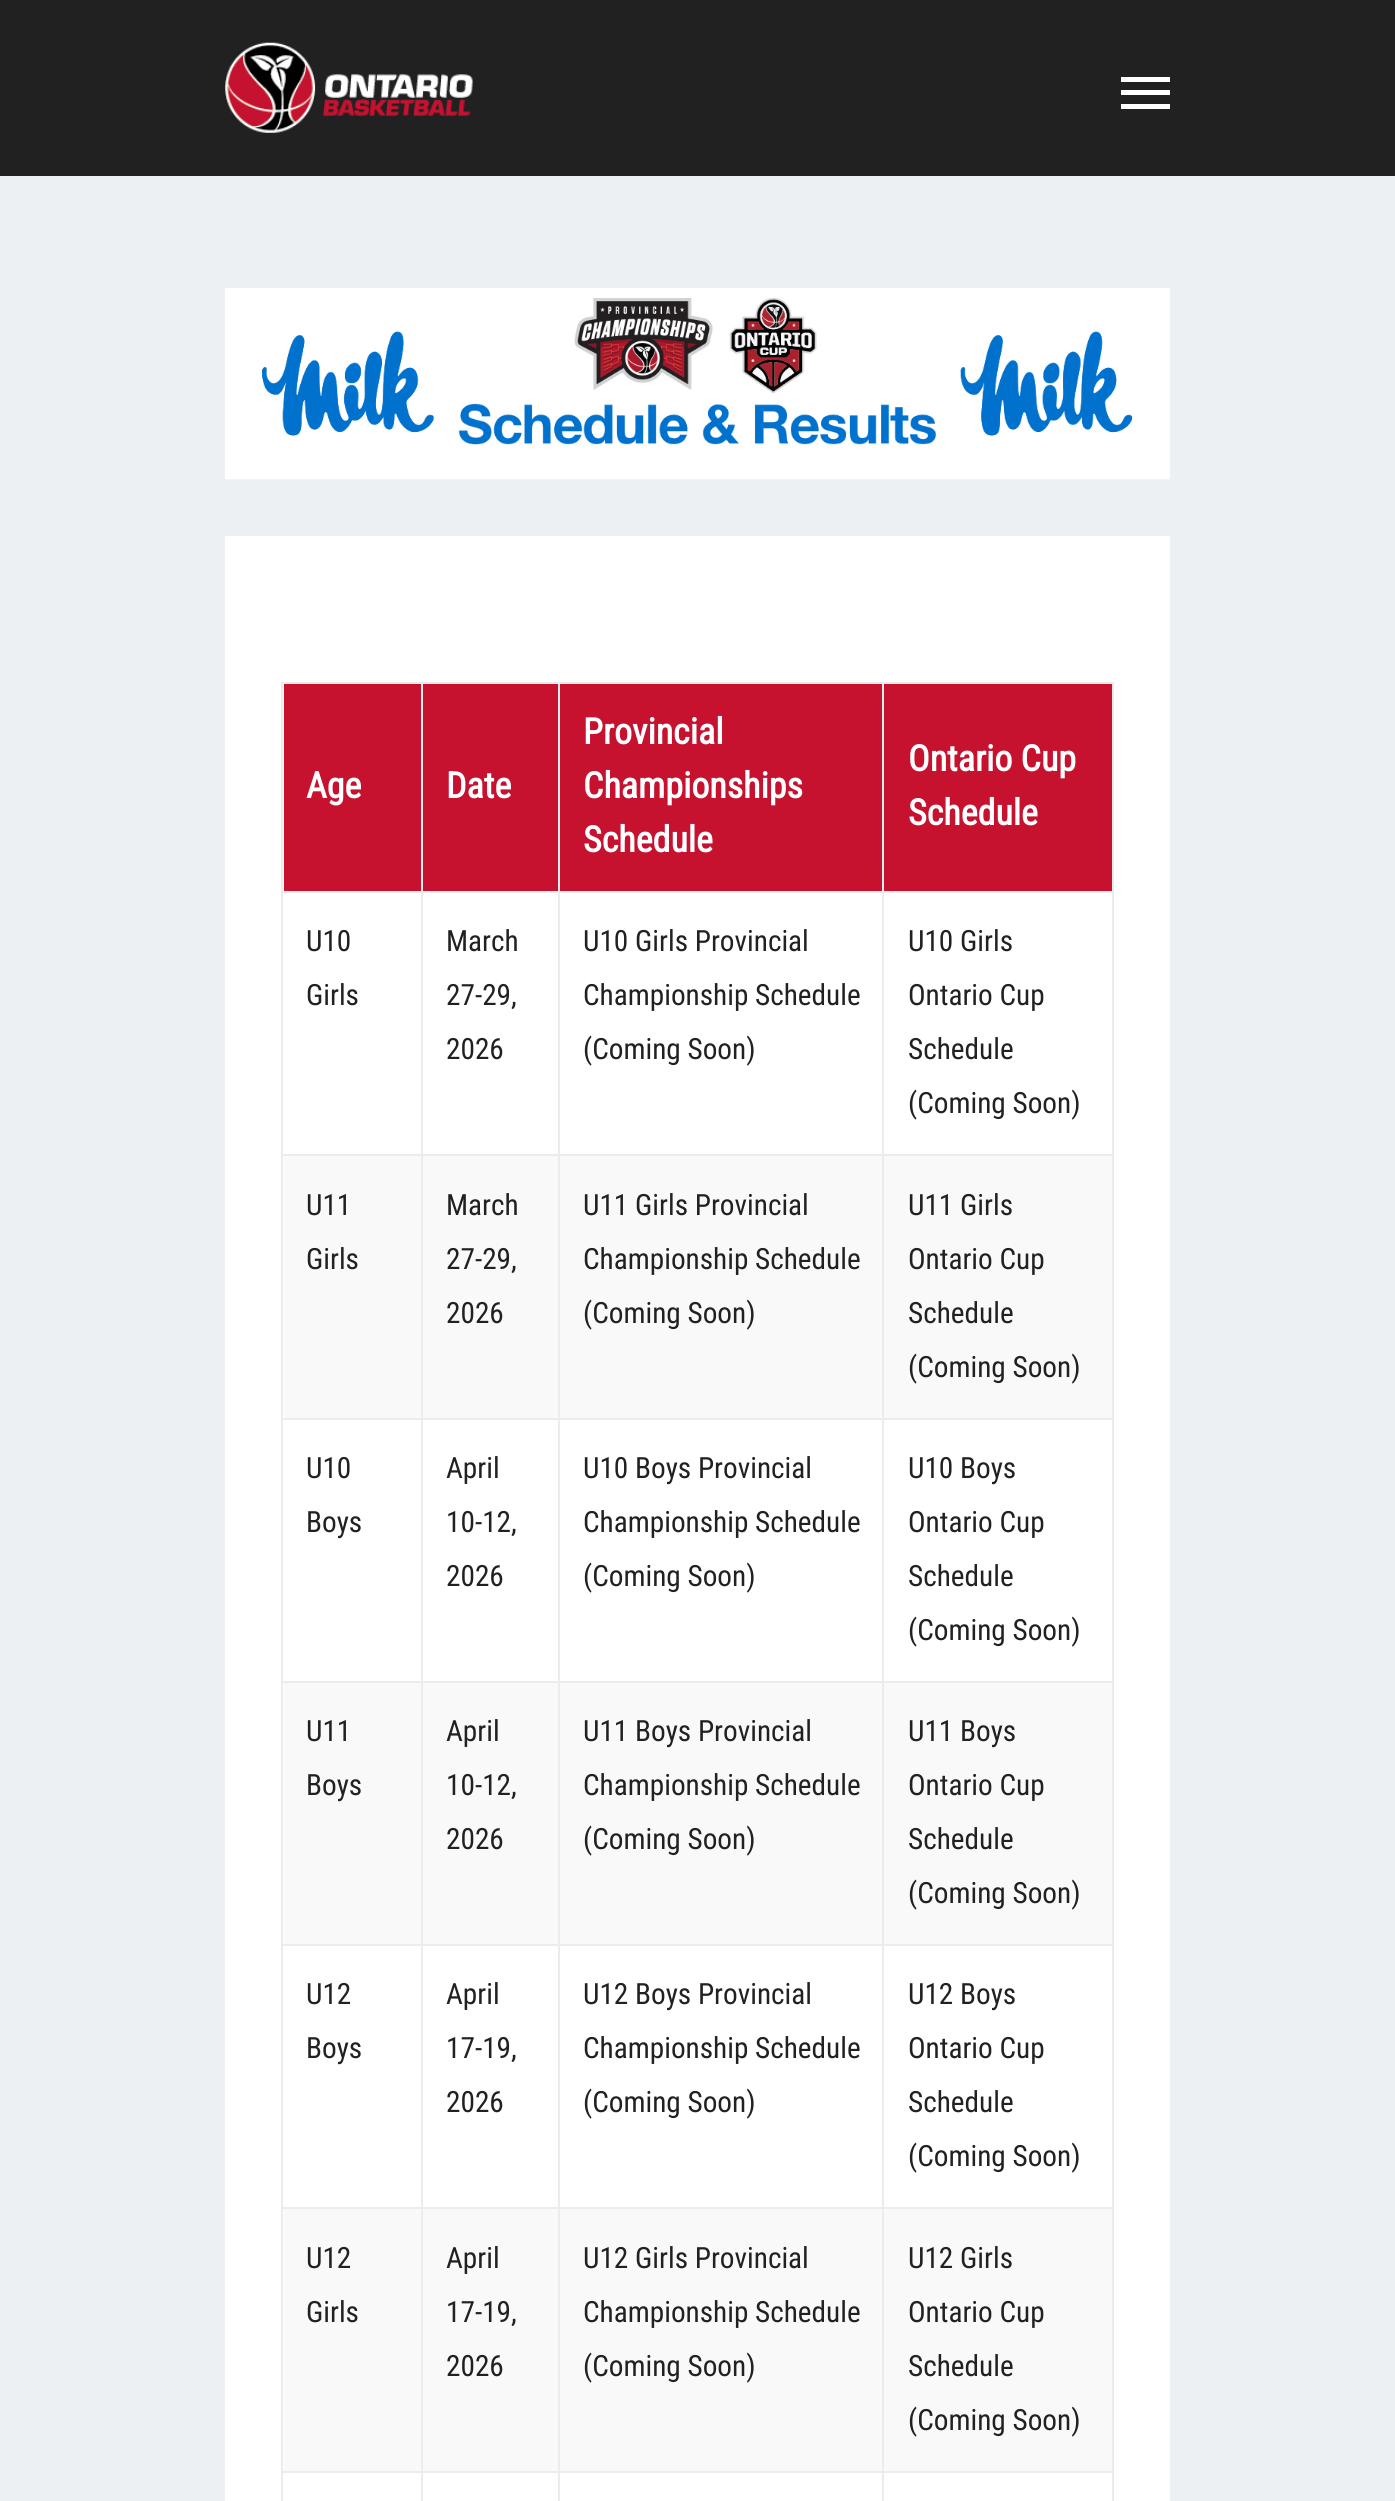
import math
import cairo



def draw_image(context, path, x, y, w, h):
    context.save()
    context.set_source_surface(cairo.ImageSurface.create_from_png(path), x, y)
    context.rectangle(x, y, w, h)
    context.fill()
    context.restore()


def draw(context):
    context.set_source_rgb(33 / 255, 33 / 255, 33 / 255)
    context.paint()
    draw_image(context, "images/1.png", 225, 42, 248, 91)
    context.set_source_rgb(1, 1, 1)
    context.rectangle(1121, 77, 49, 5)
    context.fill()
    context.rectangle(1121, 104, 49, 5)
    context.fill()
    context.rectangle(1121, 90, 49, 5)
    context.fill()
    context.set_source_rgb(237 / 255, 240 / 255, 242 / 255)
    context.rectangle(0, 176, 1395, 2325)
    context.fill()
    draw_image(context, "images/2.png", 225, 288, 945, 192)
    context.set_source_rgb(1, 1, 1)
    context.rectangle(225, 536, 945, 1965)
    context.fill()
    context.set_source_rgb(236 / 255, 236 / 255, 236 / 255)
    context.rectangle(281, 682, 833, 2)
    context.fill()
    context.set_source_rgb(198 / 255, 17 / 255, 47 / 255)
    context.rectangle(284, 684, 137, 207)
    context.fill()
    context.set_source_rgb(236 / 255, 236 / 255, 236 / 255)
    context.rectangle(1112, 682, 2, 1819)
    context.fill()
    context.rectangle(882, 2471, 2, 30)
    context.fill()
    context.rectangle(882, 2471, 232, 2)
    context.fill()
    context.rectangle(882, 2207, 2, 266)
    context.fill()
    context.rectangle(882, 2207, 232, 2)
    context.fill()
    context.rectangle(882, 1944, 2, 266)
    context.fill()
    context.rectangle(882, 1944, 232, 2)
    context.fill()
    context.rectangle(882, 1681, 2, 265)
    context.fill()
    context.rectangle(882, 1681, 232, 2)
    context.fill()
    context.rectangle(882, 1418, 2, 265)
    context.fill()
    context.rectangle(882, 1418, 232, 2)
    context.fill()
    context.rectangle(882, 1154, 2, 266)
    context.fill()
    context.rectangle(882, 1154, 232, 2)
    context.fill()
    context.rectangle(882, 891, 2, 266)
    context.fill()
    context.rectangle(882, 891, 232, 2)
    context.fill()
    context.rectangle(882, 682, 2, 211)
    context.fill()
    context.rectangle(558, 2471, 2, 30)
    context.fill()
    context.rectangle(558, 2471, 326, 2)
    context.fill()
    context.rectangle(558, 2207, 2, 266)
    context.fill()
    context.rectangle(558, 2207, 326, 2)
    context.fill()
    context.rectangle(558, 1944, 2, 266)
    context.fill()
    context.rectangle(558, 1944, 326, 2)
    context.fill()
    context.rectangle(558, 1681, 2, 265)
    context.fill()
    context.rectangle(558, 1681, 326, 2)
    context.fill()
    context.rectangle(558, 1418, 2, 265)
    context.fill()
    context.rectangle(558, 1418, 326, 2)
    context.fill()
    context.rectangle(558, 1154, 2, 266)
    context.fill()
    context.rectangle(558, 1154, 326, 2)
    context.fill()
    context.rectangle(558, 891, 2, 266)
    context.fill()
    context.rectangle(558, 891, 326, 2)
    context.fill()
    context.rectangle(558, 682, 2, 211)
    context.fill()
    context.rectangle(421, 2471, 2, 30)
    context.fill()
    context.rectangle(421, 2471, 139, 2)
    context.fill()
    context.rectangle(421, 2207, 2, 266)
    context.fill()
    context.rectangle(421, 2207, 139, 2)
    context.fill()
    context.rectangle(421, 1944, 2, 266)
    context.fill()
    context.rectangle(421, 1944, 139, 2)
    context.fill()
    context.rectangle(421, 1681, 2, 265)
    context.fill()
    context.rectangle(421, 1681, 139, 2)
    context.fill()
    context.rectangle(421, 1418, 2, 265)
    context.fill()
    context.rectangle(421, 1418, 139, 2)
    context.fill()
    context.rectangle(421, 1154, 2, 266)
    context.fill()
    context.rectangle(421, 1154, 139, 2)
    context.fill()
    context.rectangle(421, 891, 2, 266)
    context.fill()
    context.rectangle(421, 891, 139, 2)
    context.fill()
    context.rectangle(421, 682, 2, 211)
    context.fill()
    context.rectangle(281, 2471, 2, 30)
    context.fill()
    context.rectangle(281, 2471, 142, 2)
    context.fill()
    context.rectangle(281, 2207, 2, 266)
    context.fill()
    context.rectangle(281, 2207, 142, 2)
    context.fill()
    context.rectangle(281, 1944, 2, 266)
    context.fill()
    context.rectangle(281, 1944, 142, 2)
    context.fill()
    context.rectangle(281, 1681, 2, 265)
    context.fill()
    context.rectangle(281, 1681, 142, 2)
    context.fill()
    context.rectangle(281, 1418, 2, 265)
    context.fill()
    context.rectangle(281, 1418, 142, 2)
    context.fill()
    context.rectangle(281, 1154, 2, 266)
    context.fill()
    context.rectangle(281, 1154, 142, 2)
    context.fill()
    context.rectangle(281, 891, 2, 266)
    context.fill()
    context.rectangle(281, 891, 142, 2)
    context.fill()
    context.rectangle(281, 682, 2, 211)
    context.fill()
    context.set_source_rgb(198 / 255, 17 / 255, 47 / 255)
    context.rectangle(423, 684, 135, 207)
    context.fill()
    context.rectangle(560, 684, 322, 207)
    context.fill()
    context.rectangle(884, 684, 228, 207)
    context.fill()
    context.set_source_rgb(249 / 255, 249 / 255, 249 / 255)
    context.rectangle(284, 1156, 137, 262)
    context.fill()
    context.rectangle(423, 1156, 135, 262)
    context.fill()
    context.rectangle(560, 1156, 322, 262)
    context.fill()
    context.rectangle(884, 1156, 228, 262)
    context.fill()
    context.rectangle(284, 1683, 137, 261)
    context.fill()
    context.rectangle(423, 1683, 135, 261)
    context.fill()
    context.rectangle(560, 1683, 322, 261)
    context.fill()
    context.rectangle(884, 1683, 228, 261)
    context.fill()
    context.rectangle(284, 2209, 137, 262)
    context.fill()
    context.rectangle(423, 2209, 135, 262)
    context.fill()
    context.rectangle(560, 2209, 322, 262)
    context.fill()
    context.rectangle(884, 2209, 228, 262)
    context.fill()
    context.select_font_face("Roboto Condensed", cairo.FontSlant.NORMAL, cairo.FontWeight.BOLD)
    context.set_font_size(36)
    context.set_source_rgb(1, 1, 1)
    context.move_to(306, 798)
    context.show_text("Age")
    context.move_to(446, 798)
    context.show_text("Date")
    context.move_to(583, 744)
    context.show_text("Provincial")
    context.move_to(583, 798)
    context.show_text("Championships")
    context.move_to(583, 852)
    context.show_text("Schedule")
    context.move_to(908, 771)
    context.show_text("Ontario Cup")
    context.move_to(908, 825)
    context.show_text("Schedule")
    context.select_font_face("Roboto Condensed")
    context.set_font_size(29.25)
    context.set_source_rgb(33 / 255, 33 / 255, 33 / 255)
    context.move_to(306, 951)
    context.show_text("U10")
    context.move_to(306, 1005)
    context.show_text("Girls")
    context.move_to(446, 951)
    context.show_text("March")
    context.move_to(446, 1005)
    context.show_text("27-29,")
    context.move_to(446, 1059)
    context.show_text("2026")
    context.move_to(583, 951)
    context.show_text("U10 Girls Provincial")
    context.move_to(583, 1005)
    context.show_text("Championship Schedule")
    context.move_to(583, 1059)
    context.show_text("(Coming Soon)")
    context.move_to(908, 951)
    context.show_text("U10 Girls")
    context.move_to(908, 1005)
    context.show_text("Ontario Cup")
    context.move_to(908, 1059)
    context.show_text("Schedule")
    context.move_to(908, 1113)
    context.show_text("(Coming Soon)")
    context.move_to(306, 1215)
    context.show_text("U11")
    context.move_to(306, 1269)
    context.show_text("Girls")
    context.move_to(446, 1215)
    context.show_text("March")
    context.move_to(446, 1269)
    context.show_text("27-29,")
    context.move_to(446, 1323)
    context.show_text("2026")
    context.move_to(583, 1215)
    context.show_text("U11 Girls Provincial")
    context.move_to(583, 1269)
    context.show_text("Championship Schedule")
    context.move_to(583, 1323)
    context.show_text("(Coming Soon)")
    context.move_to(908, 1215)
    context.show_text("U11 Girls")
    context.move_to(908, 1269)
    context.show_text("Ontario Cup")
    context.move_to(908, 1323)
    context.show_text("Schedule")
    context.move_to(908, 1377)
    context.show_text("(Coming Soon)")
    context.move_to(306, 1478)
    context.show_text("U10")
    context.move_to(306, 1532)
    context.show_text("Boys")
    context.move_to(446, 1478)
    context.show_text("April")
    context.move_to(446, 1532)
    context.show_text("10-12,")
    context.move_to(446, 1586)
    context.show_text("2026")
    context.move_to(583, 1478)
    context.show_text("U10 Boys Provincial")
    context.move_to(583, 1532)
    context.show_text("Championship Schedule")
    context.move_to(583, 1586)
    context.show_text("(Coming Soon)")
    context.move_to(908, 1478)
    context.show_text("U10 Boys")
    context.move_to(908, 1532)
    context.show_text("Ontario Cup")
    context.move_to(908, 1586)
    context.show_text("Schedule")
    context.move_to(908, 1640)
    context.show_text("(Coming Soon)")
    context.move_to(306, 1741)
    context.show_text("U11")
    context.move_to(306, 1795)
    context.show_text("Boys")
    context.move_to(446, 1741)
    context.show_text("April")
    context.move_to(446, 1795)
    context.show_text("10-12,")
    context.move_to(446, 1849)
    context.show_text("2026")
    context.move_to(583, 1741)
    context.show_text("U11 Boys Provincial")
    context.move_to(583, 1795)
    context.show_text("Championship Schedule")
    context.move_to(583, 1849)
    context.show_text("(Coming Soon)")
    context.move_to(908, 1741)
    context.show_text("U11 Boys")
    context.move_to(908, 1795)
    context.show_text("Ontario Cup")
    context.move_to(908, 1849)
    context.show_text("Schedule")
    context.move_to(908, 1903)
    context.show_text("(Coming Soon)")
    context.move_to(306, 2004)
    context.show_text("U12")
    context.move_to(306, 2058)
    context.show_text("Boys")
    context.move_to(446, 2004)
    context.show_text("April")
    context.move_to(446, 2058)
    context.show_text("17-19,")
    context.move_to(446, 2112)
    context.show_text("2026")
    context.move_to(583, 2004)
    context.show_text("U12 Boys Provincial")
    context.move_to(583, 2058)
    context.show_text("Championship Schedule")
    context.move_to(583, 2112)
    context.show_text("(Coming Soon)")
    context.move_to(908, 2004)
    context.show_text("U12 Boys")
    context.move_to(908, 2058)
    context.show_text("Ontario Cup")
    context.move_to(908, 2112)
    context.show_text("Schedule")
    context.move_to(908, 2166)
    context.show_text("(Coming Soon)")
    context.move_to(306, 2268)
    context.show_text("U12")
    context.move_to(306, 2322)
    context.show_text("Girls")
    context.move_to(446, 2268)
    context.show_text("April")
    context.move_to(446, 2322)
    context.show_text("17-19,")
    context.move_to(446, 2376)
    context.show_text("2026")
    context.move_to(583, 2268)
    context.show_text("U12 Girls Provincial")
    context.move_to(583, 2322)
    context.show_text("Championship Schedule")
    context.move_to(583, 2376)
    context.show_text("(Coming Soon)")
    context.move_to(908, 2268)
    context.show_text("U12 Girls")
    context.move_to(908, 2322)
    context.show_text("Ontario Cup")
    context.move_to(908, 2376)
    context.show_text("Schedule")
    context.move_to(908, 2430)
    context.show_text("(Coming Soon)")


surface = cairo.ImageSurface(cairo.Format.RGB24, 1395, 2501)
context = cairo.Context(surface)
options = cairo.FontOptions()
options.set_hint_metrics(cairo.HintMetrics.OFF)
options.set_hint_style(cairo.HintStyle.NONE)
context.set_font_options(options)
context.set_miter_limit(4)
draw(context)
surface.write_to_png("out.png")
